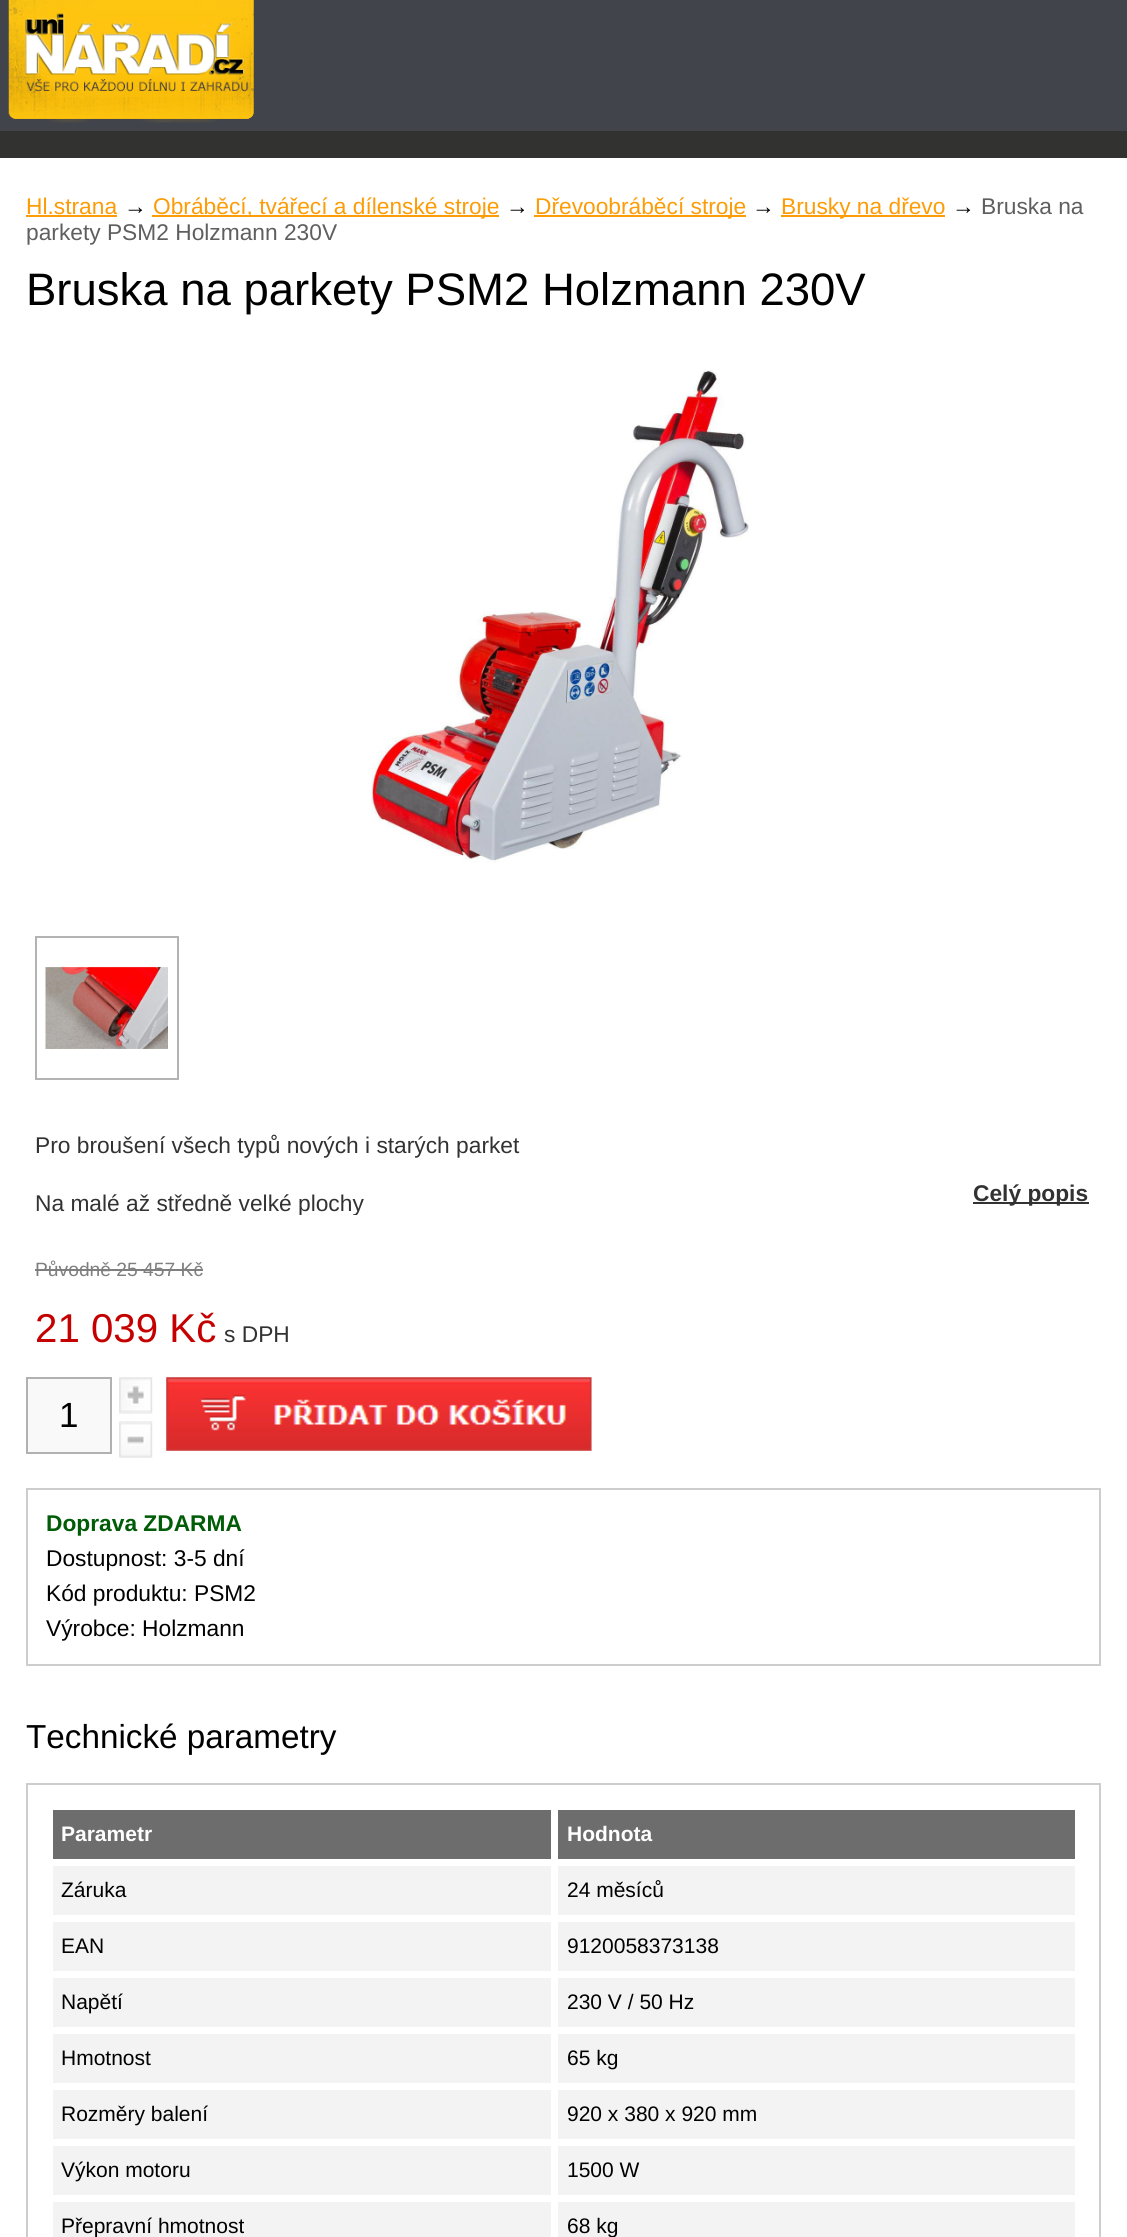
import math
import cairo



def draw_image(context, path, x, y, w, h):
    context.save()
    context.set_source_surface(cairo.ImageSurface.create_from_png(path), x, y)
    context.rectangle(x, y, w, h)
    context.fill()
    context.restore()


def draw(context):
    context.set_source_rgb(50 / 255, 50 / 255, 49 / 255)
    context.paint()
    context.set_source_rgb(65 / 255, 68 / 255, 75 / 255)
    context.rectangle(0, 0, 1127, 131)
    context.fill()
    draw_image(context, "images/1.png", 8, 0, 246, 123)
    context.set_source_rgb(1, 1, 1)
    context.rectangle(0, 158, 1127, 2079)
    context.fill()
    context.set_source_rgb(252 / 255, 156 / 255, 7 / 255)
    context.rectangle(26, 215, 91, 2)
    context.fill()
    context.rectangle(152, 215, 347, 2)
    context.fill()
    context.rectangle(534, 215, 212, 2)
    context.fill()
    context.rectangle(781, 215, 164, 2)
    context.fill()
    draw_image(context, "images/2.png", 371, 369, 378, 494)
    context.rectangle(36, 937, 142, 142)
    context.set_source_rgb(179 / 255, 179 / 255, 179 / 255)
    context.stroke()
    draw_image(context, "images/3.png", 45, 966, 123, 83)
    context.set_source_rgb(50 / 255, 50 / 255, 50 / 255)
    context.rectangle(973, 1202, 116, 2)
    context.fill()
    context.set_source_rgb(127 / 255, 127 / 255, 127 / 255)
    context.rectangle(35, 1269, 168, 2)
    context.fill()
    context.set_source_rgb(249 / 255, 249 / 255, 249 / 255)
    context.rectangle(27, 1378, 84, 75)
    context.fill_preserve()
    context.set_source_rgb(177 / 255, 177 / 255, 177 / 255)
    context.stroke()
    draw_image(context, "images/4.png", 119, 1377, 34, 37)
    draw_image(context, "images/5.png", 119, 1421, 34, 37)
    context.set_source_rgb(239 / 255, 239 / 255, 239 / 255)
    context.rectangle(166, 1377, 426, 74)
    context.fill()
    draw_image(context, "images/6.png", 166, 1377, 426, 74)
    context.rectangle(27, 1489, 1073, 176)
    context.set_source_rgb(205 / 255, 205 / 255, 205 / 255)
    context.stroke()
    context.rectangle(27, 1784, 1073, 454)
    context.stroke()
    context.set_source_rgb(109 / 255, 109 / 255, 109 / 255)
    context.rectangle(53, 1810, 498, 49)
    context.fill()
    context.rectangle(558, 1810, 517, 49)
    context.fill()
    context.set_source_rgb(243 / 255, 243 / 255, 243 / 255)
    context.rectangle(53, 1866, 498, 49)
    context.fill()
    context.rectangle(558, 1866, 517, 49)
    context.fill()
    context.rectangle(53, 1922, 498, 49)
    context.fill()
    context.rectangle(558, 1922, 517, 49)
    context.fill()
    context.rectangle(53, 1978, 498, 49)
    context.fill()
    context.rectangle(558, 1978, 517, 49)
    context.fill()
    context.rectangle(53, 2034, 498, 49)
    context.fill()
    context.rectangle(558, 2034, 517, 49)
    context.fill()
    context.rectangle(53, 2090, 498, 49)
    context.fill()
    context.rectangle(558, 2090, 517, 49)
    context.fill()
    context.rectangle(53, 2146, 498, 49)
    context.fill()
    context.rectangle(558, 2146, 517, 49)
    context.fill()
    context.rectangle(53, 2202, 498, 35)
    context.fill()
    context.rectangle(558, 2202, 517, 35)
    context.fill()
    context.select_font_face("Liberation Sans")
    context.set_font_size(22.75)
    context.set_source_rgb(252 / 255, 156 / 255, 7 / 255)
    context.move_to(26, 214)
    context.show_text("Hl.strana")
    context.set_source_rgb(0, 0, 0)
    context.move_to(124, 214)
    context.show_text("→")
    context.set_source_rgb(252 / 255, 156 / 255, 7 / 255)
    context.move_to(153, 214)
    context.show_text("Obráběcí, tvářecí a dílenské stroje")
    context.set_source_rgb(0, 0, 0)
    context.move_to(506, 214)
    context.show_text("→")
    context.set_source_rgb(252 / 255, 156 / 255, 7 / 255)
    context.move_to(535, 214)
    context.show_text("Dřevoobráběcí stroje")
    context.set_source_rgb(0, 0, 0)
    context.move_to(752, 214)
    context.show_text("→")
    context.set_source_rgb(252 / 255, 156 / 255, 7 / 255)
    context.move_to(781, 214)
    context.show_text("Brusky na dřevo")
    context.set_source_rgb(0, 0, 0)
    context.move_to(952, 214)
    context.show_text("→")
    context.set_source_rgb(95 / 255, 95 / 255, 95 / 255)
    context.move_to(981, 214)
    context.show_text("Bruska na")
    context.move_to(26, 240)
    context.show_text("parkety PSM2 Holzmann 230V")
    context.set_font_size(45.5)
    context.set_source_rgb(0, 0, 0)
    context.move_to(26, 305)
    context.show_text("Bruska na parkety PSM2 Holzmann 230V")
    context.set_font_size(22.75)
    context.set_source_rgb(50 / 255, 50 / 255, 50 / 255)
    context.move_to(35, 1153)
    context.show_text("Pro broušení všech typů nových i starých parket")
    context.save()
    context.rectangle(35, 1106, 1057, 109)
    context.clip()
    context.move_to(35, 1211)
    context.show_text("Na malé až středně velké plochy")
    context.restore()
    context.select_font_face("Liberation Sans", cairo.FontSlant.NORMAL, cairo.FontWeight.BOLD)
    context.move_to(973, 1201)
    context.show_text("Celý popis")
    context.select_font_face("Liberation Sans")
    context.set_font_size(19.25)
    context.set_source_rgb(127 / 255, 127 / 255, 127 / 255)
    context.move_to(35, 1276)
    context.show_text("Původně 25 457 Kč")
    context.set_font_size(40.25)
    context.set_source_rgb(196 / 255, 1 / 255, 0)
    context.move_to(35, 1342)
    context.show_text("21 039 Kč")
    context.set_font_size(22.75)
    context.set_source_rgb(50 / 255, 50 / 255, 50 / 255)
    context.move_to(224, 1342)
    context.show_text("s DPH")
    context.set_font_size(35)
    context.set_source_rgb(0, 0, 0)
    context.move_to(59, 1427)
    context.show_text("1")
    context.select_font_face("Liberation Sans", cairo.FontSlant.NORMAL, cairo.FontWeight.BOLD)
    context.set_font_size(22.75)
    context.set_source_rgb(0, 92 / 255, 6 / 255)
    context.move_to(46, 1531)
    context.show_text("Doprava ZDARMA")
    context.select_font_face("Liberation Sans")
    context.set_source_rgb(0, 0, 0)
    context.move_to(46, 1566)
    context.show_text("Dostupnost: 3-5 dní")
    context.move_to(46, 1601)
    context.show_text("Kód produktu: PSM2")
    context.move_to(46, 1636)
    context.show_text("Výrobce: Holzmann")
    context.set_font_size(33.25)
    context.move_to(26, 1748)
    context.show_text("Technické parametry")
    context.select_font_face("Liberation Sans", cairo.FontSlant.NORMAL, cairo.FontWeight.BOLD)
    context.set_font_size(21)
    context.set_source_rgb(1, 1, 1)
    context.move_to(61, 1841)
    context.show_text("Parametr")
    context.move_to(567, 1841)
    context.show_text("Hodnota")
    context.select_font_face("Liberation Sans")
    context.set_source_rgb(0, 0, 0)
    context.move_to(61, 1897)
    context.show_text("Záruka")
    context.move_to(567, 1897)
    context.show_text("24 měsíců")
    context.move_to(61, 1953)
    context.show_text("EAN")
    context.move_to(567, 1953)
    context.show_text("9120058373138")
    context.move_to(61, 2009)
    context.show_text("Napětí")
    context.move_to(567, 2009)
    context.show_text("230 V / 50 Hz")
    context.move_to(61, 2065)
    context.show_text("Hmotnost")
    context.move_to(567, 2065)
    context.show_text("65 kg")
    context.move_to(61, 2121)
    context.show_text("Rozměry balení")
    context.move_to(567, 2121)
    context.show_text("920 x 380 x 920 mm")
    context.move_to(61, 2177)
    context.show_text("Výkon motoru")
    context.move_to(567, 2177)
    context.show_text("1500 W")
    context.move_to(61, 2233)
    context.show_text("Přepravní hmotnost")
    context.move_to(567, 2233)
    context.show_text("68 kg")


surface = cairo.ImageSurface(cairo.Format.RGB24, 1127, 2237)
context = cairo.Context(surface)
options = cairo.FontOptions()
options.set_hint_metrics(cairo.HintMetrics.OFF)
options.set_hint_style(cairo.HintStyle.NONE)
context.set_font_options(options)
context.set_miter_limit(4)
draw(context)
surface.write_to_png("out.png")
